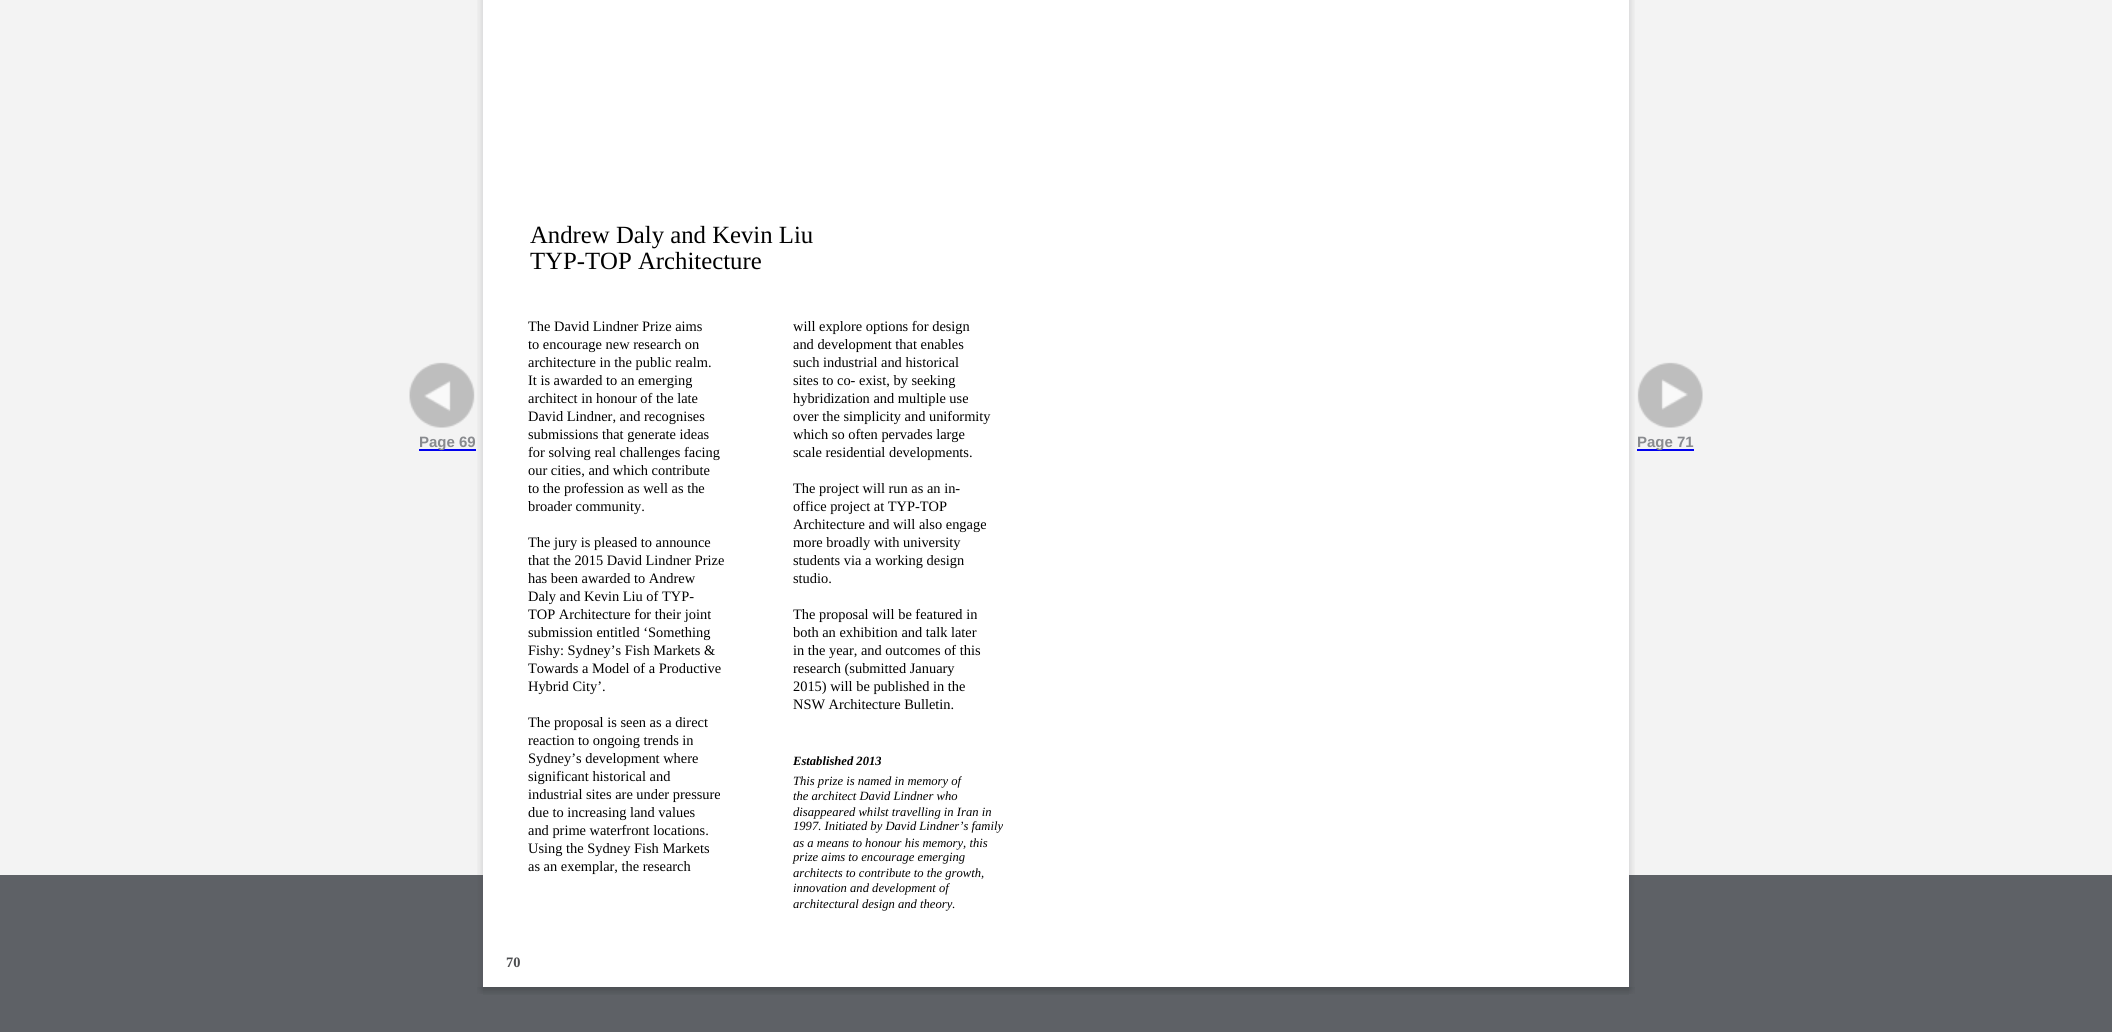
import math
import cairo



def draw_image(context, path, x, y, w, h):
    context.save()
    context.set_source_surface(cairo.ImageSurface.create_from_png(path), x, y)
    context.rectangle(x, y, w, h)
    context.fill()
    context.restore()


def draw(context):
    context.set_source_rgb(94 / 255, 97 / 255, 102 / 255)
    context.paint()
    context.set_source_rgb(243 / 255, 243 / 255, 243 / 255)
    context.rectangle(0, 0, 2112, 875)
    context.fill()
    context.set_source_rgb(1, 1, 1)
    context.rectangle(483, 0, 1146, 987)
    context.fill()
    draw_image(context, "images/1.png", 409, 362, 66, 66)
    context.set_source_rgb(0, 0, 238 / 255)
    context.rectangle(419, 449, 57, 2)
    context.fill()
    draw_image(context, "images/2.png", 477, 0, 6, 987)
    draw_image(context, "images/3.png", 1629, 0, 6, 987)
    draw_image(context, "images/4.png", 1637, 362, 66, 66)
    context.rectangle(1637, 449, 57, 2)
    context.fill()
    draw_image(context, "images/5.png", 477, 987, 6, 7)
    draw_image(context, "images/6.png", 483, 987, 1146, 8)
    draw_image(context, "images/7.png", 1629, 987, 6, 7)
    context.select_font_face("Liberation Sans", cairo.FontSlant.NORMAL, cairo.FontWeight.BOLD)
    context.set_font_size(15)
    context.set_source_rgb(137 / 255, 139 / 255, 143 / 255)
    context.move_to(419, 447)
    context.show_text("Page 69")
    context.select_font_face("Liberation Serif")
    context.set_font_size(24.75)
    context.set_source_rgb(0, 0, 0)
    context.move_to(530, 243)
    context.show_text("Andrew Daly and Kevin Liu")
    context.move_to(530, 269)
    context.show_text("TYP-TOP Architecture")
    context.set_font_size(14.4)
    context.move_to(528, 331)
    context.show_text("The David Lindner Prize aims")
    context.move_to(793, 331)
    context.show_text("will explore options for design")
    context.move_to(528, 349)
    context.show_text("to encourage new research on")
    context.move_to(793, 349)
    context.show_text("and development that enables")
    context.move_to(528, 367)
    context.show_text("architecture in the public realm.")
    context.move_to(793, 367)
    context.show_text("such industrial and historical")
    context.move_to(528, 385)
    context.show_text("It is awarded to an emerging")
    context.move_to(793, 385)
    context.show_text("sites to co- exist, by seeking")
    context.move_to(528, 403)
    context.show_text("architect in honour of the late")
    context.move_to(793, 403)
    context.show_text("hybridization and multiple use")
    context.move_to(528, 421)
    context.show_text("David Lindner, and recognises")
    context.move_to(793, 421)
    context.show_text("over the simplicity and uniformity")
    context.move_to(528, 439)
    context.show_text("submissions that generate ideas")
    context.move_to(793, 439)
    context.show_text("which so often pervades large")
    context.move_to(528, 457)
    context.show_text("for solving real challenges facing")
    context.move_to(793, 457)
    context.show_text("scale residential developments.")
    context.move_to(528, 475)
    context.show_text("our cities, and which contribute")
    context.move_to(528, 493)
    context.show_text("to the profession as well as the")
    context.move_to(793, 493)
    context.show_text("The project will run as an in-")
    context.move_to(528, 511)
    context.show_text("broader community.")
    context.move_to(793, 511)
    context.show_text("office project at TYP-TOP")
    context.move_to(793, 529)
    context.show_text("Architecture and will also engage")
    context.move_to(528, 547)
    context.show_text("The jury is pleased to announce")
    context.move_to(793, 547)
    context.show_text("more broadly with university")
    context.move_to(528, 565)
    context.show_text("that the 2015 David Lindner Prize")
    context.move_to(793, 565)
    context.show_text("students via a working design")
    context.move_to(528, 583)
    context.show_text("has been awarded to Andrew")
    context.move_to(793, 583)
    context.show_text("studio.")
    context.move_to(528, 601)
    context.show_text("Daly and Kevin Liu of TYP-")
    context.move_to(528, 619)
    context.show_text("TOP Architecture for their joint")
    context.move_to(793, 619)
    context.show_text("The proposal will be featured in")
    context.move_to(528, 637)
    context.show_text("submission entitled ‘Something")
    context.move_to(793, 637)
    context.show_text("both an exhibition and talk later")
    context.move_to(528, 655)
    context.show_text("Fishy: Sydney’s Fish Markets &")
    context.move_to(793, 655)
    context.show_text("in the year, and outcomes of this")
    context.move_to(528, 673)
    context.show_text("Towards a Model of a Productive")
    context.move_to(793, 673)
    context.show_text("research (submitted January")
    context.move_to(528, 691)
    context.show_text("Hybrid City’.")
    context.move_to(793, 691)
    context.show_text("2015) will be published in the")
    context.move_to(793, 709)
    context.show_text("NSW Architecture Bulletin.")
    context.move_to(528, 727)
    context.show_text("The proposal is seen as a direct")
    context.move_to(528, 745)
    context.show_text("reaction to ongoing trends in")
    context.move_to(528, 763)
    context.show_text("Sydney’s development where")
    context.select_font_face("Liberation Serif", cairo.FontSlant.ITALIC, cairo.FontWeight.BOLD)
    context.set_font_size(12.6)
    context.move_to(793, 765)
    context.show_text("Established 2013")
    context.select_font_face("Liberation Serif")
    context.set_font_size(14.4)
    context.move_to(528, 781)
    context.show_text("significant historical and")
    context.select_font_face("Liberation Serif", cairo.FontSlant.ITALIC)
    context.set_font_size(12.6)
    context.move_to(793, 785)
    context.show_text("This prize is named in memory of")
    context.select_font_face("Liberation Serif")
    context.set_font_size(14.4)
    context.move_to(528, 799)
    context.show_text("industrial sites are under pressure")
    context.select_font_face("Liberation Serif", cairo.FontSlant.ITALIC)
    context.set_font_size(12.6)
    context.move_to(793, 800)
    context.show_text("the architect David Lindner who")
    context.select_font_face("Liberation Serif")
    context.set_font_size(14.4)
    context.move_to(528, 817)
    context.show_text("due to increasing land values")
    context.select_font_face("Liberation Serif", cairo.FontSlant.ITALIC)
    context.set_font_size(12.6)
    context.move_to(793, 816)
    context.show_text("disappeared whilst travelling in Iran in")
    context.select_font_face("Liberation Serif")
    context.set_font_size(14.4)
    context.move_to(528, 835)
    context.show_text("and prime waterfront locations.")
    context.select_font_face("Liberation Serif", cairo.FontSlant.ITALIC)
    context.set_font_size(12.6)
    context.move_to(793, 830)
    context.show_text("1997. Initiated by David Lindner’s family")
    context.select_font_face("Liberation Serif")
    context.set_font_size(14.4)
    context.move_to(528, 853)
    context.show_text("Using the Sydney Fish Markets")
    context.select_font_face("Liberation Serif", cairo.FontSlant.ITALIC)
    context.set_font_size(12.6)
    context.move_to(793, 847)
    context.show_text("as a means to honour his memory, this")
    context.move_to(793, 861)
    context.show_text("prize aims to encourage emerging")
    context.select_font_face("Liberation Serif")
    context.set_font_size(14.4)
    context.move_to(528, 871)
    context.show_text("as an exemplar, the research")
    context.select_font_face("Liberation Serif", cairo.FontSlant.ITALIC)
    context.set_font_size(12.6)
    context.move_to(793, 877)
    context.show_text("architects to contribute to the growth,")
    context.move_to(793, 892)
    context.show_text("innovation and development of")
    context.move_to(793, 908)
    context.show_text("architectural design and theory.")
    context.select_font_face("Liberation Serif", cairo.FontSlant.NORMAL, cairo.FontWeight.BOLD)
    context.set_font_size(14.4)
    context.set_source_rgb(76 / 255, 77 / 255, 79 / 255)
    context.move_to(506, 967)
    context.show_text("70")
    context.select_font_face("Liberation Sans", cairo.FontSlant.NORMAL, cairo.FontWeight.BOLD)
    context.set_font_size(15)
    context.set_source_rgb(137 / 255, 139 / 255, 143 / 255)
    context.move_to(1637, 447)
    context.show_text("Page 71")


surface = cairo.ImageSurface(cairo.Format.RGB24, 2112, 1032)
context = cairo.Context(surface)
options = cairo.FontOptions()
options.set_hint_metrics(cairo.HintMetrics.OFF)
options.set_hint_style(cairo.HintStyle.NONE)
context.set_font_options(options)
context.set_miter_limit(4)
draw(context)
surface.write_to_png("out.png")
